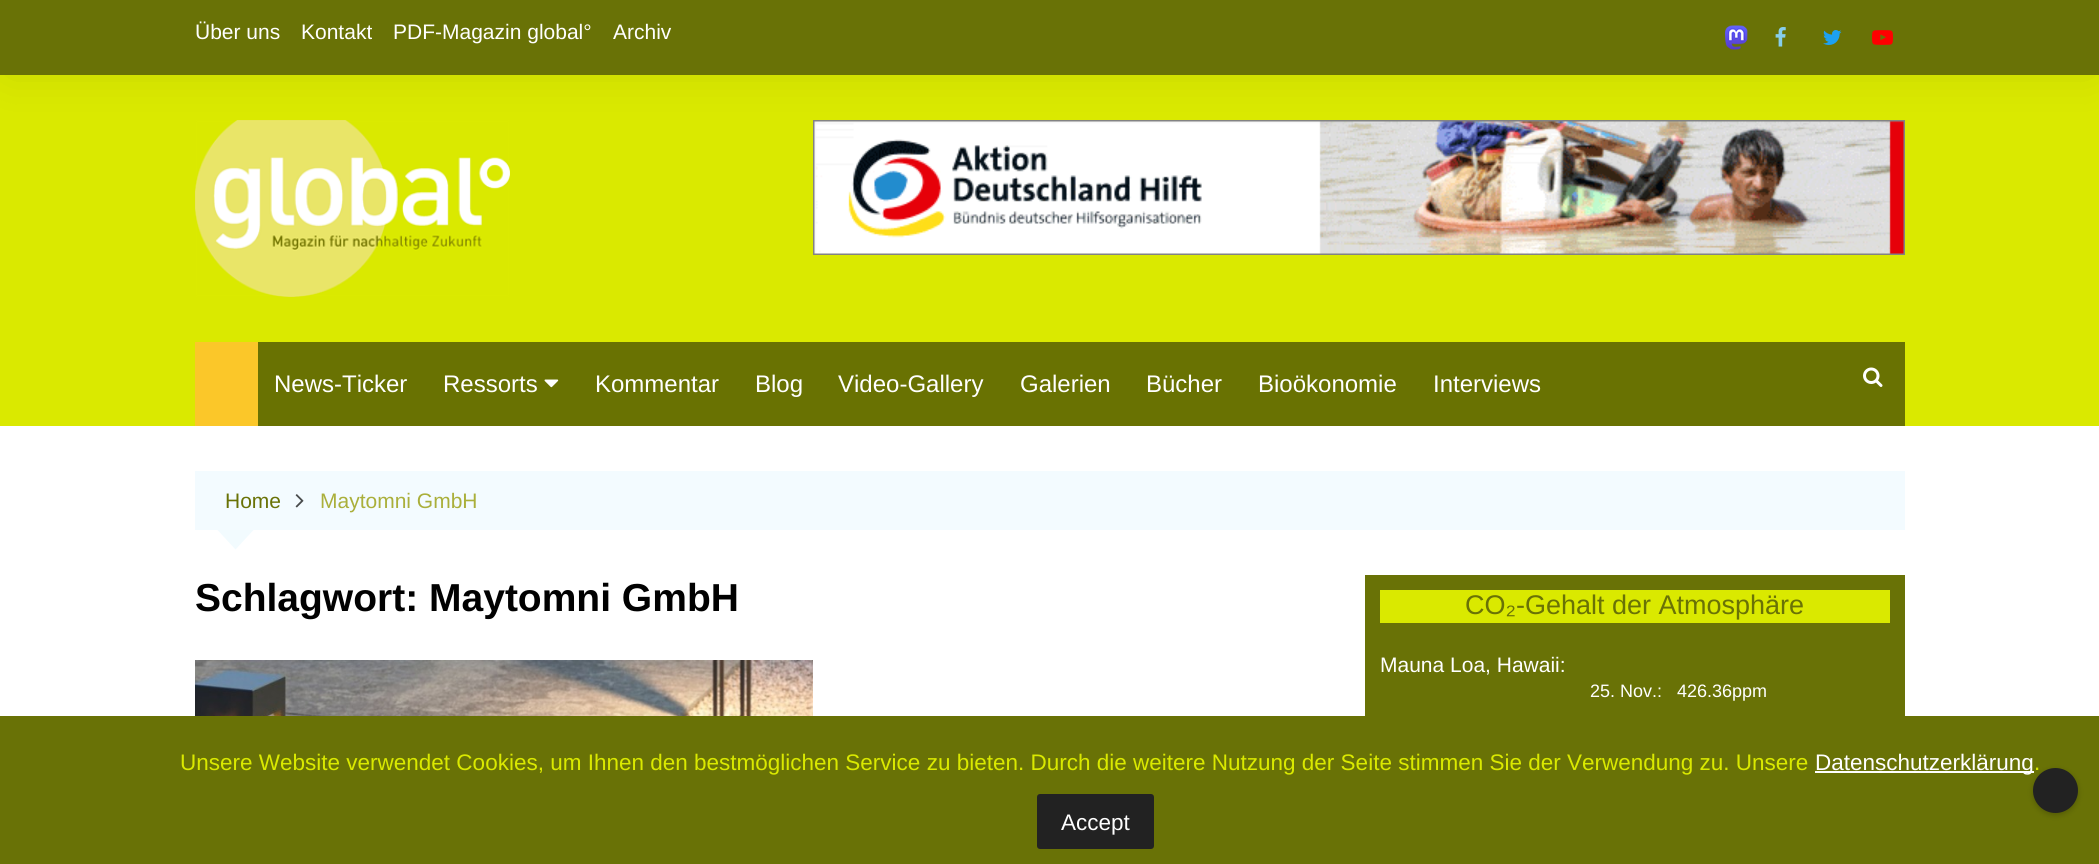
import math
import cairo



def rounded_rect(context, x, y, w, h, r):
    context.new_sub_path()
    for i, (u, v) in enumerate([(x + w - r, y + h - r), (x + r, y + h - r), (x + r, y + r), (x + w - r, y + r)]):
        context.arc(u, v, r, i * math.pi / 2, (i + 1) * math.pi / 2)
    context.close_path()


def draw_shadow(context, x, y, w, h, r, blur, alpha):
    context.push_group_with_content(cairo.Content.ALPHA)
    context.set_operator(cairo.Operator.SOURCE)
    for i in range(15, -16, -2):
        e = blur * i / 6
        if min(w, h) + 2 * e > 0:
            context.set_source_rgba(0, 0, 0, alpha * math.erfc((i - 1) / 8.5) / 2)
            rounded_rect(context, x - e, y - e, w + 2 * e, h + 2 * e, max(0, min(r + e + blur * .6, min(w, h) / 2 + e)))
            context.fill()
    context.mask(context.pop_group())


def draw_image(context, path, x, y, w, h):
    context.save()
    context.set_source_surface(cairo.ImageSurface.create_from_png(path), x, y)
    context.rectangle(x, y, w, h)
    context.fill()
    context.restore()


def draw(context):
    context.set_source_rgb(1, 1, 1)
    context.paint()
    context.set_source_rgb(218 / 255, 233 / 255, 0)
    context.rectangle(0, 75, 2099, 351)
    context.fill()
    context.set_source_rgb(0, 0, 0)
    draw_shadow(context, 8, 11, 2085, 60, 0, 22.5, 0.1)
    context.set_source_rgb(105 / 255, 114 / 255, 6 / 255)
    context.rectangle(0, 0, 2099, 75)
    context.fill()
    draw_image(context, "images/1.png", 1725, 25, 23, 25)
    draw_image(context, "images/2.png", 1775, 27, 11, 20)
    draw_image(context, "images/3.png", 1823, 30, 19, 15)
    draw_image(context, "images/4.png", 1872, 30, 21, 15)
    draw_image(context, "images/5.png", 195, 120, 315, 177)
    draw_image(context, "images/6.png", 813, 120, 1092, 135)
    context.set_source_rgb(105 / 255, 114 / 255, 2 / 255)
    context.rectangle(258, 342, 1647, 84)
    context.fill()
    context.set_source_rgb(251 / 255, 199 / 255, 41 / 255)
    context.rectangle(195, 342, 63, 84)
    context.fill()
    draw_image(context, "images/7.png", 544, 379, 15, 9)
    draw_image(context, "images/8.png", 1863, 367, 20, 20)
    context.set_source_rgb(243 / 255, 251 / 255, 1)
    context.rectangle(195, 471, 1710, 59)
    context.fill()
    draw_image(context, "images/9.png", 295, 494, 9, 14)
    context.set_source_rgb(242 / 255, 251 / 255, 254 / 255)
    context.new_path()
    context.move_to(217.5, 530)
    context.line_to(253.5, 530)
    context.line_to(235.5, 549.5)
    context.close_path()
    context.fill()
    draw_image(context, "images/10.png", 195, 660, 618, 56)
    context.set_source_rgb(105 / 255, 114 / 255, 6 / 255)
    context.rectangle(1365, 575, 540, 141)
    context.fill()
    context.set_source_rgb(218 / 255, 233 / 255, 0)
    context.rectangle(1380, 590, 510, 33)
    context.fill()
    context.set_source_rgb(105 / 255, 114 / 255, 6 / 255)
    context.rectangle(0, 716, 2099, 148)
    context.fill()
    context.set_source_rgb(1, 1, 1)
    context.rectangle(1815, 771, 219, 2)
    context.fill()
    context.set_source_rgb(34 / 255, 34 / 255, 34 / 255)
    rounded_rect(context, 1038, 795, 115, 53, 2)
    context.fill_preserve()
    context.stroke()
    context.set_source_rgb(0, 0, 0)
    draw_shadow(context, 2033, 770, 45, 45, 22.5, 3, 0.2)
    context.select_font_face("Liberation Sans")
    context.set_font_size(21)
    context.set_source_rgb(1, 1, 1)
    context.move_to(195, 39)
    context.show_text("Über uns")
    context.move_to(301, 39)
    context.show_text("Kontakt")
    context.move_to(393, 39)
    context.show_text("PDF-Magazin global°")
    context.move_to(613, 39)
    context.show_text("Archiv")
    context.set_font_size(24)
    context.move_to(274, 392)
    context.show_text("News-Ticker")
    context.move_to(443, 392)
    context.show_text("Ressorts")
    context.move_to(595, 392)
    context.show_text("Kommentar")
    context.move_to(755, 392)
    context.show_text("Blog")
    context.move_to(838, 392)
    context.show_text("Video-Gallery")
    context.move_to(1020, 392)
    context.show_text("Galerien")
    context.move_to(1146, 392)
    context.show_text("Bücher")
    context.move_to(1258, 392)
    context.show_text("Bioökonomie")
    context.move_to(1433, 392)
    context.show_text("Interviews")
    context.set_font_size(21)
    context.set_source_rgb(105 / 255, 114 / 255, 6 / 255)
    context.move_to(225, 508)
    context.show_text("Home")
    context.set_source_rgb(170 / 255, 175 / 255, 59 / 255)
    context.move_to(320, 508)
    context.show_text("Maytomni GmbH")
    context.select_font_face("Liberation Sans", cairo.FontSlant.NORMAL, cairo.FontWeight.BOLD)
    context.set_font_size(39)
    context.set_source_rgb(1 / 255, 1 / 255, 1 / 255)
    context.move_to(195, 611)
    context.show_text("Schlagwort: Maytomni GmbH")
    context.select_font_face("Liberation Sans")
    context.set_font_size(27)
    context.set_source_rgb(105 / 255, 114 / 255, 6 / 255)
    context.move_to(1465, 614)
    context.show_text("CO₂-Gehalt der Atmosphäre")
    context.set_font_size(21)
    context.set_source_rgb(1, 1, 1)
    context.move_to(1380, 672)
    context.show_text("Mauna Loa, Hawaii:")
    context.set_font_size(18)
    context.move_to(1590, 697)
    context.show_text("25. Nov.:")
    context.move_to(1677, 697)
    context.show_text("426.36ppm")
    context.set_font_size(22.5)
    context.set_source_rgb(218 / 255, 233 / 255, 0)
    context.move_to(180, 770)
    context.show_text("Unsere Website verwendet Cookies, um Ihnen den bestmöglichen Service zu bieten. Durch die weitere Nutzung der Seite stimmen Sie der Verwendung zu. Unsere")
    context.set_source_rgb(1, 1, 1)
    context.move_to(1815, 770)
    context.show_text("Datenschutzerklärung")
    context.set_source_rgb(218 / 255, 233 / 255, 0)
    context.move_to(2034, 770)
    context.show_text(".")
    context.set_source_rgb(1, 1, 1)
    context.move_to(1061, 830)
    context.show_text("Accept")
    context.set_source_rgb(34 / 255, 34 / 255, 34 / 255)
    context.new_path()
    context.arc(2055.5, 790.5, 22.5, 0, 2 * math.pi)
    context.fill()


surface = cairo.ImageSurface(cairo.Format.RGB24, 2099, 864)
context = cairo.Context(surface)
options = cairo.FontOptions()
options.set_hint_metrics(cairo.HintMetrics.OFF)
options.set_hint_style(cairo.HintStyle.NONE)
context.set_font_options(options)
context.set_miter_limit(4)
draw(context)
surface.write_to_png("out.png")
